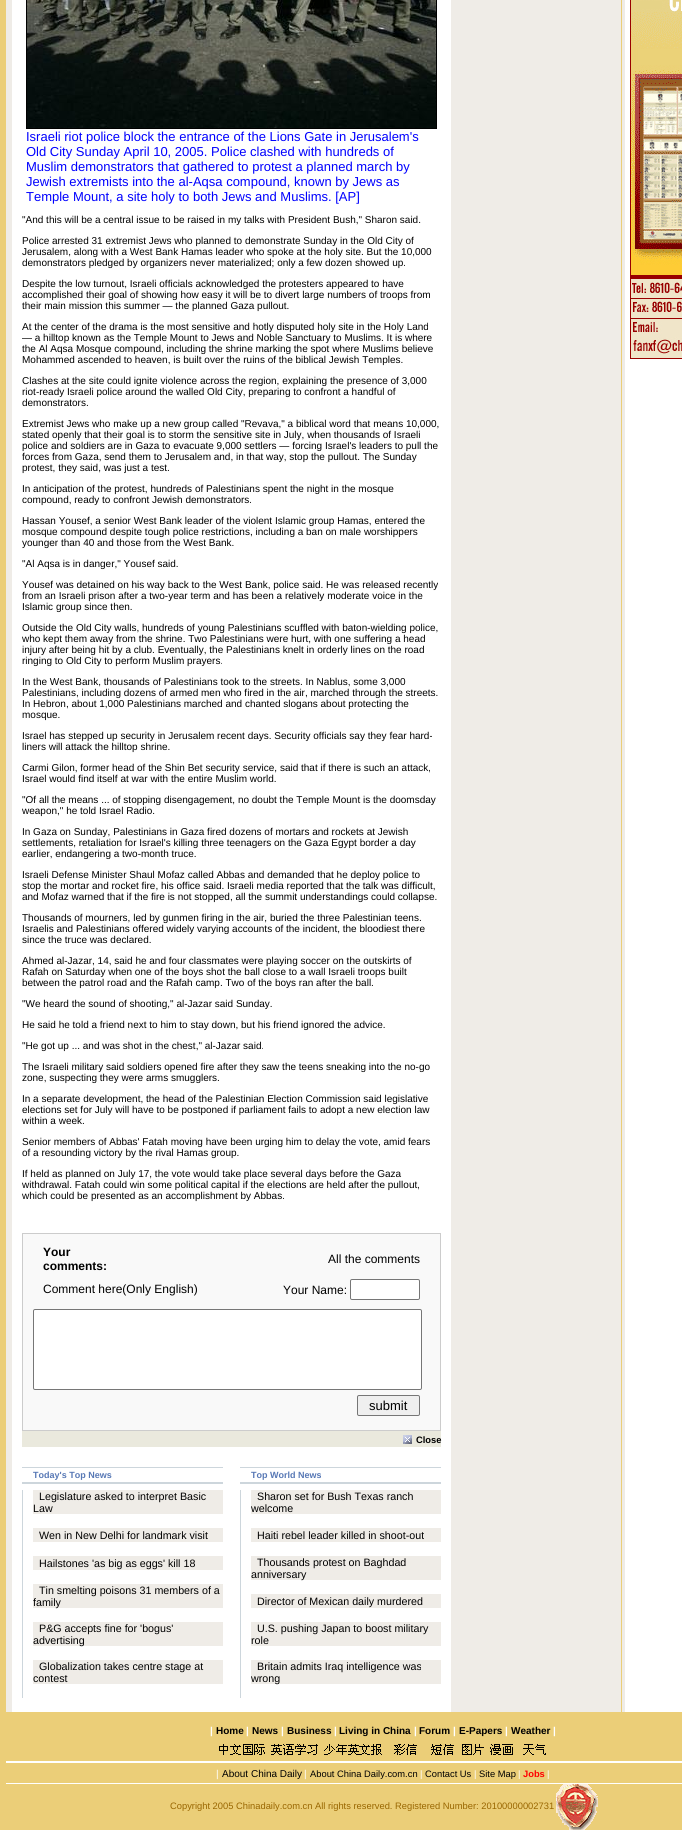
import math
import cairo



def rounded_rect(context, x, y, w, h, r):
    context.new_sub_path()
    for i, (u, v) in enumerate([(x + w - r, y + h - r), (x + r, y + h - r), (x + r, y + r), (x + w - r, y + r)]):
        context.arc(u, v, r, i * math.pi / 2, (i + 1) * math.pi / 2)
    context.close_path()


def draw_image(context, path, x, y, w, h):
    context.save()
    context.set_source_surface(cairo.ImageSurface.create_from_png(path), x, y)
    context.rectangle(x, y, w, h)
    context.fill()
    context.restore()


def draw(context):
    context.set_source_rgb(1, 1, 1)
    context.paint()
    context.set_source_rgb(235 / 255, 206 / 255, 120 / 255)
    context.rectangle(0, 0, 6, 1712)
    context.fill()
    context.set_source_rgb(239 / 255, 236 / 255, 231 / 255)
    context.rectangle(6, 0, 6, 1712)
    context.fill()
    context.rectangle(26.5, -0.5, 410, 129)
    context.set_source_rgb(0, 0, 0)
    context.set_line_width(1)
    context.stroke()
    draw_image(context, "images/1.png", 27, 0, 409, 128)
    context.set_source_rgb(204 / 255, 204 / 255, 204 / 255)
    context.rectangle(22, 1233, 419, 198)
    context.fill()
    context.set_source_rgb(249 / 255, 249 / 255, 249 / 255)
    context.rectangle(23, 1234, 417, 196)
    context.fill()
    context.set_source_rgb(1, 1, 1)
    rounded_rect(context, 350.5, 1279.5, 69, 20, 1.5)
    context.fill_preserve()
    context.set_source_rgb(118 / 255, 118 / 255, 118 / 255)
    context.stroke()
    context.set_source_rgb(1, 1, 1)
    rounded_rect(context, 33.5, 1309.5, 388, 80, 1.5)
    context.fill_preserve()
    context.set_source_rgb(118 / 255, 118 / 255, 118 / 255)
    context.stroke()
    context.set_source_rgb(239 / 255, 239 / 255, 239 / 255)
    rounded_rect(context, 357.5, 1395.5, 62, 20, 1.5)
    context.fill_preserve()
    context.set_source_rgb(118 / 255, 118 / 255, 118 / 255)
    context.stroke()
    context.set_source_rgb(234 / 255, 233 / 255, 221 / 255)
    context.rectangle(22, 1431, 419, 16)
    context.fill()
    draw_image(context, "images/2.png", 403, 1435, 9, 9)
    context.set_source_rgb(205 / 255, 214 / 255, 220 / 255)
    context.rectangle(22, 1467, 201, 1)
    context.fill()
    context.rectangle(240, 1467, 201, 1)
    context.fill()
    context.rectangle(22, 1482, 201, 2)
    context.fill()
    context.rectangle(240, 1482, 201, 2)
    context.fill()
    context.rectangle(22, 1490, 1, 208)
    context.fill()
    context.set_source_rgb(239 / 255, 236 / 255, 231 / 255)
    context.rectangle(33, 1490, 190, 24)
    context.fill()
    context.rectangle(33, 1528, 190, 14)
    context.fill()
    context.rectangle(33, 1556, 190, 14)
    context.fill()
    context.rectangle(33, 1584, 190, 24)
    context.fill()
    context.rectangle(33, 1622, 190, 24)
    context.fill()
    context.rectangle(33, 1660, 190, 24)
    context.fill()
    context.set_source_rgb(205 / 255, 214 / 255, 220 / 255)
    context.rectangle(240, 1490, 1, 208)
    context.fill()
    context.set_source_rgb(239 / 255, 236 / 255, 231 / 255)
    context.rectangle(251, 1490, 190, 24)
    context.fill()
    context.rectangle(251, 1528, 190, 14)
    context.fill()
    context.rectangle(251, 1556, 190, 24)
    context.fill()
    context.rectangle(251, 1594, 190, 14)
    context.fill()
    context.rectangle(251, 1622, 190, 24)
    context.fill()
    context.rectangle(251, 1660, 190, 24)
    context.fill()
    context.rectangle(451, 0, 170, 1712)
    context.fill()
    context.set_source_rgb(235 / 255, 206 / 255, 120 / 255)
    context.rectangle(621, 0, 1, 1712)
    context.fill()
    context.set_source_rgb(239 / 255, 236 / 255, 231 / 255)
    context.rectangle(622, 0, 3, 1712)
    context.fill()
    draw_image(context, "images/3.png", 630, 0, 52, 359)
    context.set_source_rgb(235 / 255, 206 / 255, 120 / 255)
    context.rectangle(0, 1712, 682, 118)
    context.fill()
    draw_image(context, "images/4.png", 219, 1744, 327, 11)
    context.set_source_rgb(1, 1, 1)
    context.rectangle(6, 1761, 676, 2)
    context.fill()
    context.rectangle(6, 1783, 676, 1)
    context.fill()
    draw_image(context, "images/5.png", 556, 1784, 42, 46)
    context.select_font_face("Liberation Sans")
    context.set_font_size(13)
    context.set_source_rgb(0, 0, 1)
    context.move_to(26, 141)
    context.show_text("Israeli riot police block the entrance of the Lions Gate in Jerusalem's")
    context.move_to(26, 156)
    context.show_text("Old City Sunday April 10, 2005. Police clashed with hundreds of")
    context.move_to(26, 171)
    context.show_text("Muslim demonstrators that gathered to protest a planned march by")
    context.move_to(26, 186)
    context.show_text("Jewish extremists into the al-Aqsa compound, known by Jews as")
    context.move_to(26, 201)
    context.show_text("Temple Mount, a site holy to both Jews and Muslims. [AP]")
    context.set_font_size(10)
    context.set_source_rgb(0, 0, 0)
    context.move_to(22, 223)
    context.show_text("\"And this will be a central issue to be raised in my talks with President Bush,\" Sharon said.")
    context.move_to(22, 244)
    context.show_text("Police arrested 31 extremist Jews who planned to demonstrate Sunday in the Old City of")
    context.move_to(22, 255)
    context.show_text("Jerusalem, along with a West Bank Hamas leader who spoke at the holy site. But the 10,000")
    context.move_to(22, 266)
    context.show_text("demonstrators pledged by organizers never materialized; only a few dozen showed up.")
    context.move_to(22, 287)
    context.show_text("Despite the low turnout, Israeli officials acknowledged the protesters appeared to have")
    context.move_to(22, 298)
    context.show_text("accomplished their goal of showing how easy it will be to divert large numbers of troops from")
    context.move_to(22, 309)
    context.show_text("their main mission this summer — the planned Gaza pullout.")
    context.move_to(22, 330)
    context.show_text("At the center of the drama is the most sensitive and hotly disputed holy site in the Holy Land")
    context.move_to(22, 341)
    context.show_text("— a hilltop known as the Temple Mount to Jews and Noble Sanctuary to Muslims. It is where")
    context.move_to(22, 352)
    context.show_text("the Al Aqsa Mosque compound, including the shrine marking the spot where Muslims believe")
    context.move_to(22, 363)
    context.show_text("Mohammed ascended to heaven, is built over the ruins of the biblical Jewish Temples.")
    context.move_to(22, 384)
    context.show_text("Clashes at the site could ignite violence across the region, explaining the presence of 3,000")
    context.move_to(22, 395)
    context.show_text("riot-ready Israeli police around the walled Old City, preparing to confront a handful of")
    context.move_to(22, 406)
    context.show_text("demonstrators.")
    context.move_to(22, 427)
    context.show_text("Extremist Jews who make up a new group called \"Revava,\" a biblical word that means 10,000,")
    context.move_to(22, 438)
    context.show_text("stated openly that their goal is to storm the sensitive site in July, when thousands of Israeli")
    context.move_to(22, 449)
    context.show_text("police and soldiers are in Gaza to evacuate 9,000 settlers — forcing Israel's leaders to pull the")
    context.move_to(22, 460)
    context.show_text("forces from Gaza, send them to Jerusalem and, in that way, stop the pullout. The Sunday")
    context.move_to(22, 471)
    context.show_text("protest, they said, was just a test.")
    context.move_to(22, 492)
    context.show_text("In anticipation of the protest, hundreds of Palestinians spent the night in the mosque")
    context.move_to(22, 503)
    context.show_text("compound, ready to confront Jewish demonstrators.")
    context.move_to(22, 524)
    context.show_text("Hassan Yousef, a senior West Bank leader of the violent Islamic group Hamas, entered the")
    context.move_to(22, 535)
    context.show_text("mosque compound despite tough police restrictions, including a ban on male worshippers")
    context.move_to(22, 546)
    context.show_text("younger than 40 and those from the West Bank.")
    context.move_to(22, 567)
    context.show_text("\"Al Aqsa is in danger,\" Yousef said.")
    context.move_to(22, 588)
    context.show_text("Yousef was detained on his way back to the West Bank, police said. He was released recently")
    context.move_to(22, 599)
    context.show_text("from an Israeli prison after a two-year term and has been a relatively moderate voice in the")
    context.move_to(22, 610)
    context.show_text("Islamic group since then.")
    context.move_to(22, 631)
    context.show_text("Outside the Old City walls, hundreds of young Palestinians scuffled with baton-wielding police,")
    context.move_to(22, 642)
    context.show_text("who kept them away from the shrine. Two Palestinians were hurt, with one suffering a head")
    context.move_to(22, 653)
    context.show_text("injury after being hit by a club. Eventually, the Palestinians knelt in orderly lines on the road")
    context.move_to(22, 664)
    context.show_text("ringing to Old City to perform Muslim prayers.")
    context.move_to(22, 685)
    context.show_text("In the West Bank, thousands of Palestinians took to the streets. In Nablus, some 3,000")
    context.move_to(22, 696)
    context.show_text("Palestinians, including dozens of armed men who fired in the air, marched through the streets.")
    context.move_to(22, 707)
    context.show_text("In Hebron, about 1,000 Palestinians marched and chanted slogans about protecting the")
    context.move_to(22, 718)
    context.show_text("mosque.")
    context.move_to(22, 739)
    context.show_text("Israel has stepped up security in Jerusalem recent days. Security officials say they fear hard-")
    context.move_to(22, 750)
    context.show_text("liners will attack the hilltop shrine.")
    context.move_to(22, 771)
    context.show_text("Carmi Gilon, former head of the Shin Bet security service, said that if there is such an attack,")
    context.move_to(22, 782)
    context.show_text("Israel would find itself at war with the entire Muslim world.")
    context.move_to(22, 803)
    context.show_text("\"Of all the means ... of stopping disengagement, no doubt the Temple Mount is the doomsday")
    context.move_to(22, 814)
    context.show_text("weapon,\" he told Israel Radio.")
    context.move_to(22, 835)
    context.show_text("In Gaza on Sunday, Palestinians in Gaza fired dozens of mortars and rockets at Jewish")
    context.move_to(22, 846)
    context.show_text("settlements, retaliation for Israel's killing three teenagers on the Gaza Egypt border a day")
    context.move_to(22, 857)
    context.show_text("earlier, endangering a two-month truce.")
    context.move_to(22, 878)
    context.show_text("Israeli Defense Minister Shaul Mofaz called Abbas and demanded that he deploy police to")
    context.move_to(22, 889)
    context.show_text("stop the mortar and rocket fire, his office said. Israeli media reported that the talk was difficult,")
    context.move_to(22, 900)
    context.show_text("and Mofaz warned that if the fire is not stopped, all the summit understandings could collapse.")
    context.move_to(22, 921)
    context.show_text("Thousands of mourners, led by gunmen firing in the air, buried the three Palestinian teens.")
    context.move_to(22, 932)
    context.show_text("Israelis and Palestinians offered widely varying accounts of the incident, the bloodiest there")
    context.move_to(22, 943)
    context.show_text("since the truce was declared.")
    context.move_to(22, 964)
    context.show_text("Ahmed al-Jazar, 14, said he and four classmates were playing soccer on the outskirts of")
    context.move_to(22, 975)
    context.show_text("Rafah on Saturday when one of the boys shot the ball close to a wall Israeli troops built")
    context.move_to(22, 986)
    context.show_text("between the patrol road and the Rafah camp. Two of the boys ran after the ball.")
    context.move_to(22, 1007)
    context.show_text("\"We heard the sound of shooting,\" al-Jazar said Sunday.")
    context.move_to(22, 1028)
    context.show_text("He said he told a friend next to him to stay down, but his friend ignored the advice.")
    context.move_to(22, 1049)
    context.show_text("\"He got up ... and was shot in the chest,\" al-Jazar said.")
    context.move_to(22, 1070)
    context.show_text("The Israeli military said soldiers opened fire after they saw the teens sneaking into the no-go")
    context.move_to(22, 1081)
    context.show_text("zone, suspecting they were arms smugglers.")
    context.move_to(22, 1102)
    context.show_text("In a separate development, the head of the Palestinian Election Commission said legislative")
    context.move_to(22, 1113)
    context.show_text("elections set for July will have to be postponed if parliament fails to adopt a new election law")
    context.move_to(22, 1124)
    context.show_text("within a week.")
    context.move_to(22, 1145)
    context.show_text("Senior members of Abbas' Fatah moving have been urging him to delay the vote, amid fears")
    context.move_to(22, 1156)
    context.show_text("of a resounding victory by the rival Hamas group.")
    context.move_to(22, 1177)
    context.show_text("If held as planned on July 17, the vote would take place several days before the Gaza")
    context.move_to(22, 1188)
    context.show_text("withdrawal. Fatah could win some political capital if the elections are held after the pullout,")
    context.move_to(22, 1199)
    context.show_text("which could be presented as an accomplishment by Abbas.")
    context.select_font_face("Liberation Sans", cairo.FontSlant.NORMAL, cairo.FontWeight.BOLD)
    context.set_font_size(12)
    context.move_to(43, 1256)
    context.show_text("Your")
    context.move_to(43, 1270)
    context.show_text("comments:")
    context.select_font_face("Liberation Sans")
    context.move_to(328, 1263)
    context.show_text("All the comments")
    context.move_to(43, 1293)
    context.show_text("Comment here(Only English)")
    context.move_to(283, 1294)
    context.show_text("Your Name:")
    context.set_font_size(13)
    context.move_to(369, 1410)
    context.show_text("submit")
    context.select_font_face("Liberation Sans", cairo.FontSlant.NORMAL, cairo.FontWeight.BOLD)
    context.set_font_size(9.35)
    context.move_to(416, 1443)
    context.show_text("Close")
    context.set_font_size(9)
    context.set_source_rgb(87 / 255, 120 / 255, 181 / 255)
    context.move_to(33, 1478)
    context.show_text("Today's Top News")
    context.move_to(251, 1478)
    context.show_text("Top World News")
    context.select_font_face("Liberation Sans")
    context.set_font_size(10.7)
    context.set_source_rgb(0, 0, 0)
    context.move_to(39, 1500)
    context.show_text("Legislature asked to interpret Basic")
    context.move_to(33, 1512)
    context.show_text("Law")
    context.move_to(39, 1539)
    context.show_text("Wen in New Delhi for landmark visit")
    context.move_to(39, 1567)
    context.show_text("Hailstones 'as big as eggs' kill 18")
    context.move_to(39, 1594)
    context.show_text("Tin smelting poisons 31 members of a")
    context.move_to(33, 1606)
    context.show_text("family")
    context.move_to(39, 1632)
    context.show_text("P&G accepts fine for 'bogus'")
    context.move_to(33, 1644)
    context.show_text("advertising")
    context.move_to(39, 1670)
    context.show_text("Globalization takes centre stage at")
    context.move_to(33, 1682)
    context.show_text("contest")
    context.move_to(257, 1500)
    context.show_text("Sharon set for Bush Texas ranch")
    context.move_to(251, 1512)
    context.show_text("welcome")
    context.move_to(257, 1539)
    context.show_text("Haiti rebel leader killed in shoot-out")
    context.move_to(257, 1566)
    context.show_text("Thousands protest on Baghdad")
    context.move_to(251, 1578)
    context.show_text("anniversary")
    context.move_to(257, 1605)
    context.show_text("Director of Mexican daily murdered")
    context.move_to(257, 1632)
    context.show_text("U.S. pushing Japan to boost military")
    context.move_to(251, 1644)
    context.show_text("role")
    context.move_to(257, 1670)
    context.show_text("Britain admits Iraq intelligence was")
    context.move_to(251, 1682)
    context.show_text("wrong")
    context.select_font_face("Liberation Sans", cairo.FontSlant.NORMAL, cairo.FontWeight.BOLD)
    context.set_font_size(10)
    context.set_source_rgb(1, 1, 1)
    context.move_to(210, 1734)
    context.show_text("|")
    context.set_source_rgb(0, 0, 0)
    context.move_to(216, 1734)
    context.show_text("Home")
    context.set_source_rgb(1, 1, 1)
    context.move_to(246, 1734)
    context.show_text("|")
    context.set_source_rgb(0, 0, 0)
    context.move_to(252, 1734)
    context.show_text("News")
    context.set_source_rgb(1, 1, 1)
    context.move_to(281, 1734)
    context.show_text("|")
    context.set_source_rgb(0, 0, 0)
    context.move_to(287, 1734)
    context.show_text("Business")
    context.set_source_rgb(1, 1, 1)
    context.move_to(334, 1734)
    context.show_text("|")
    context.set_source_rgb(0, 0, 0)
    context.move_to(339, 1734)
    context.show_text("Living in China")
    context.set_source_rgb(1, 1, 1)
    context.move_to(414, 1734)
    context.show_text("|")
    context.set_source_rgb(0, 0, 0)
    context.move_to(419, 1734)
    context.show_text("Forum")
    context.set_source_rgb(1, 1, 1)
    context.move_to(453, 1734)
    context.show_text("|")
    context.set_source_rgb(0, 0, 0)
    context.move_to(459, 1734)
    context.show_text("E-Papers")
    context.set_source_rgb(1, 1, 1)
    context.move_to(505, 1734)
    context.show_text("|")
    context.set_source_rgb(0, 0, 0)
    context.move_to(511, 1734)
    context.show_text("Weather")
    context.set_source_rgb(1, 1, 1)
    context.move_to(553, 1734)
    context.show_text("|")
    context.select_font_face("Liberation Sans")
    context.move_to(216, 1777)
    context.show_text("|")
    context.set_source_rgb(0, 0, 0)
    context.move_to(222, 1777)
    context.show_text("About China Daily")
    context.set_source_rgb(1, 1, 1)
    context.move_to(304, 1777)
    context.show_text("|")
    context.set_font_size(9.35)
    context.set_source_rgb(0, 0, 0)
    context.move_to(310, 1777)
    context.show_text("About China Daily.com.cn")
    context.set_source_rgb(1, 1, 1)
    context.move_to(420, 1777)
    context.show_text("|")
    context.set_source_rgb(0, 0, 0)
    context.move_to(425, 1777)
    context.show_text("Contact Us")
    context.set_source_rgb(1, 1, 1)
    context.move_to(474, 1777)
    context.show_text("|")
    context.set_source_rgb(0, 0, 0)
    context.move_to(479, 1777)
    context.show_text("Site Map")
    context.set_source_rgb(1, 1, 1)
    context.move_to(518, 1777)
    context.show_text("|")
    context.select_font_face("Liberation Sans", cairo.FontSlant.NORMAL, cairo.FontWeight.BOLD)
    context.set_source_rgb(1, 0, 0)
    context.move_to(523, 1777)
    context.show_text("Jobs")
    context.select_font_face("Liberation Sans")
    context.set_source_rgb(1, 1, 1)
    context.move_to(547, 1777)
    context.show_text("|")
    context.set_source_rgb(153 / 255, 102 / 255, 0)
    context.move_to(170, 1809)
    context.show_text("Copyright 2005 Chinadaily.com.cn All rights reserved. Registered Number: 20100000002731")


surface = cairo.ImageSurface(cairo.Format.RGB24, 682, 1830)
context = cairo.Context(surface)
options = cairo.FontOptions()
options.set_hint_metrics(cairo.HintMetrics.OFF)
options.set_hint_style(cairo.HintStyle.NONE)
context.set_font_options(options)
context.set_miter_limit(4)
draw(context)
surface.write_to_png("out.png")
